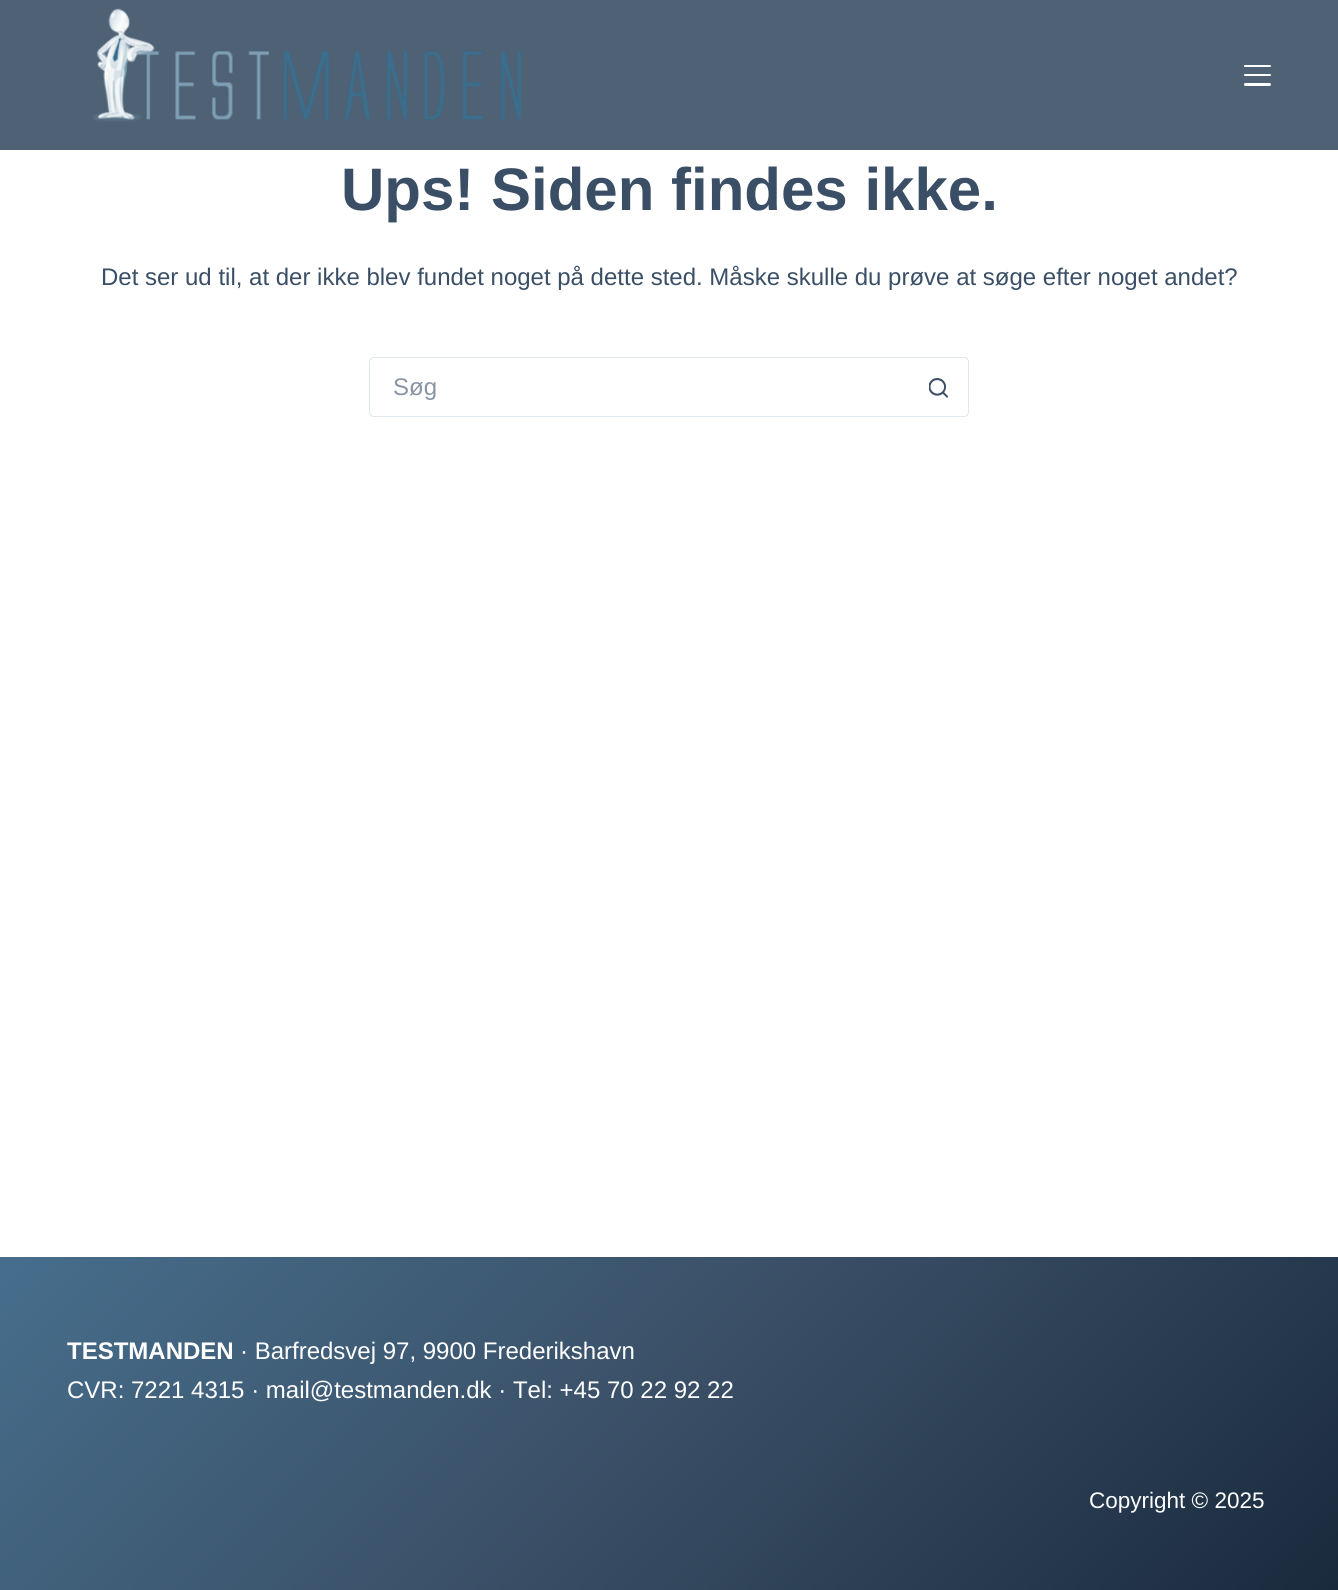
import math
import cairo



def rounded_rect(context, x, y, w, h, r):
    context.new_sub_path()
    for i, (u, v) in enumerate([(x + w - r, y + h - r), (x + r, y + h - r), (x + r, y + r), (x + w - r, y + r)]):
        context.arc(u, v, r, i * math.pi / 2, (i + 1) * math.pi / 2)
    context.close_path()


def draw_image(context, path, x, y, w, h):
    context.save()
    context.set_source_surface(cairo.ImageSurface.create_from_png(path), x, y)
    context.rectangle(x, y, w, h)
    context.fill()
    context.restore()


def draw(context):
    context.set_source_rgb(1, 1, 1)
    context.paint()
    context.set_source_rgb(78 / 255, 97 / 255, 117 / 255)
    context.rectangle(0, 0, 1338, 150)
    context.fill()
    draw_image(context, "images/1.png", 92, 8, 429, 114)
    context.set_source_rgb(1, 1, 1)
    rounded_rect(context, 1244, 65, 27, 2, 1)
    context.fill()
    rounded_rect(context, 1244, 74, 27, 2, 1)
    context.fill()
    rounded_rect(context, 1244, 83, 27, 3, 1.5)
    context.fill()
    context.set_source_rgb(225 / 255, 232 / 255, 237 / 255)
    context.set_fill_rule(cairo.FillRule.EVEN_ODD)
    context.new_path()
    context.move_to(374, 357)
    context.line_to(909, 357)
    context.line_to(909, 417)
    context.line_to(374, 417)
    context.curve_to(371, 417, 369, 415, 369, 412)
    context.line_to(369, 362)
    context.curve_to(369, 359, 371, 357, 374, 357)
    context.close_path()
    context.move_to(374, 358)
    context.line_to(909, 358)
    context.line_to(909, 416)
    context.line_to(374, 416)
    context.curve_to(372, 416, 370, 414, 370, 412)
    context.line_to(370, 362)
    context.curve_to(370, 360, 372, 358, 374, 358)
    context.close_path()
    context.fill()
    context.new_path()
    context.move_to(909, 357)
    context.line_to(964, 357)
    context.curve_to(967, 357, 969, 359, 969, 362)
    context.line_to(969, 412)
    context.curve_to(969, 415, 967, 417, 964, 417)
    context.line_to(909, 417)
    context.close_path()
    context.move_to(909, 358)
    context.line_to(964, 358)
    context.curve_to(966, 358, 968, 360, 968, 362)
    context.line_to(968, 412)
    context.curve_to(968, 414, 966, 416, 964, 416)
    context.line_to(909, 416)
    context.close_path()
    context.fill()
    draw_image(context, "images/2.png", 929, 378, 19, 20)
    gradient = cairo.LinearGradient(251, 1006, 1087, 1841)
    gradient.add_color_stop_rgba(0, 70 / 255, 110 / 255, 140 / 255, 1)
    gradient.add_color_stop_rgba(0.49, 58 / 255, 79 / 255, 102 / 255, 1)
    gradient.add_color_stop_rgba(1, 25 / 255, 42 / 255, 61 / 255, 1)
    context.set_source(gradient)
    context.rectangle(0, 1257, 1338, 333)
    context.fill()
    context.select_font_face("Liberation Sans", cairo.FontSlant.NORMAL, cairo.FontWeight.BOLD)
    context.set_font_size(60)
    context.set_source_rgb(58 / 255, 79 / 255, 102 / 255)
    context.move_to(341, 210)
    context.show_text("Ups! Siden findes ikke.")
    context.select_font_face("Liberation Sans")
    context.set_font_size(24)
    context.move_to(101, 285)
    context.show_text("Det ser ud til, at der ikke blev fundet noget på dette sted. Måske skulle du prøve at søge efter noget andet?")
    context.set_source_rgb(137 / 255, 149 / 255, 163 / 255)
    context.move_to(393, 395)
    context.show_text("Søg")
    context.select_font_face("Liberation Sans", cairo.FontSlant.NORMAL, cairo.FontWeight.BOLD)
    context.set_source_rgb(1, 1, 1)
    context.move_to(67, 1359)
    context.show_text("TESTMANDEN")
    context.select_font_face("Liberation Sans")
    context.move_to(240, 1359)
    context.show_text("· Barfredsvej 97, 9900 Frederikshavn")
    context.move_to(67, 1398)
    context.show_text("CVR: 7221 4315 · mail@testmanden.dk · Tel: +45 70 22 92 22")
    context.set_font_size(22.5)
    context.move_to(1089, 1508)
    context.show_text("Copyright © 2025")


surface = cairo.ImageSurface(cairo.Format.RGB24, 1338, 1590)
context = cairo.Context(surface)
options = cairo.FontOptions()
options.set_hint_metrics(cairo.HintMetrics.OFF)
options.set_hint_style(cairo.HintStyle.NONE)
context.set_font_options(options)
context.set_miter_limit(4)
draw(context)
surface.write_to_png("out.png")
